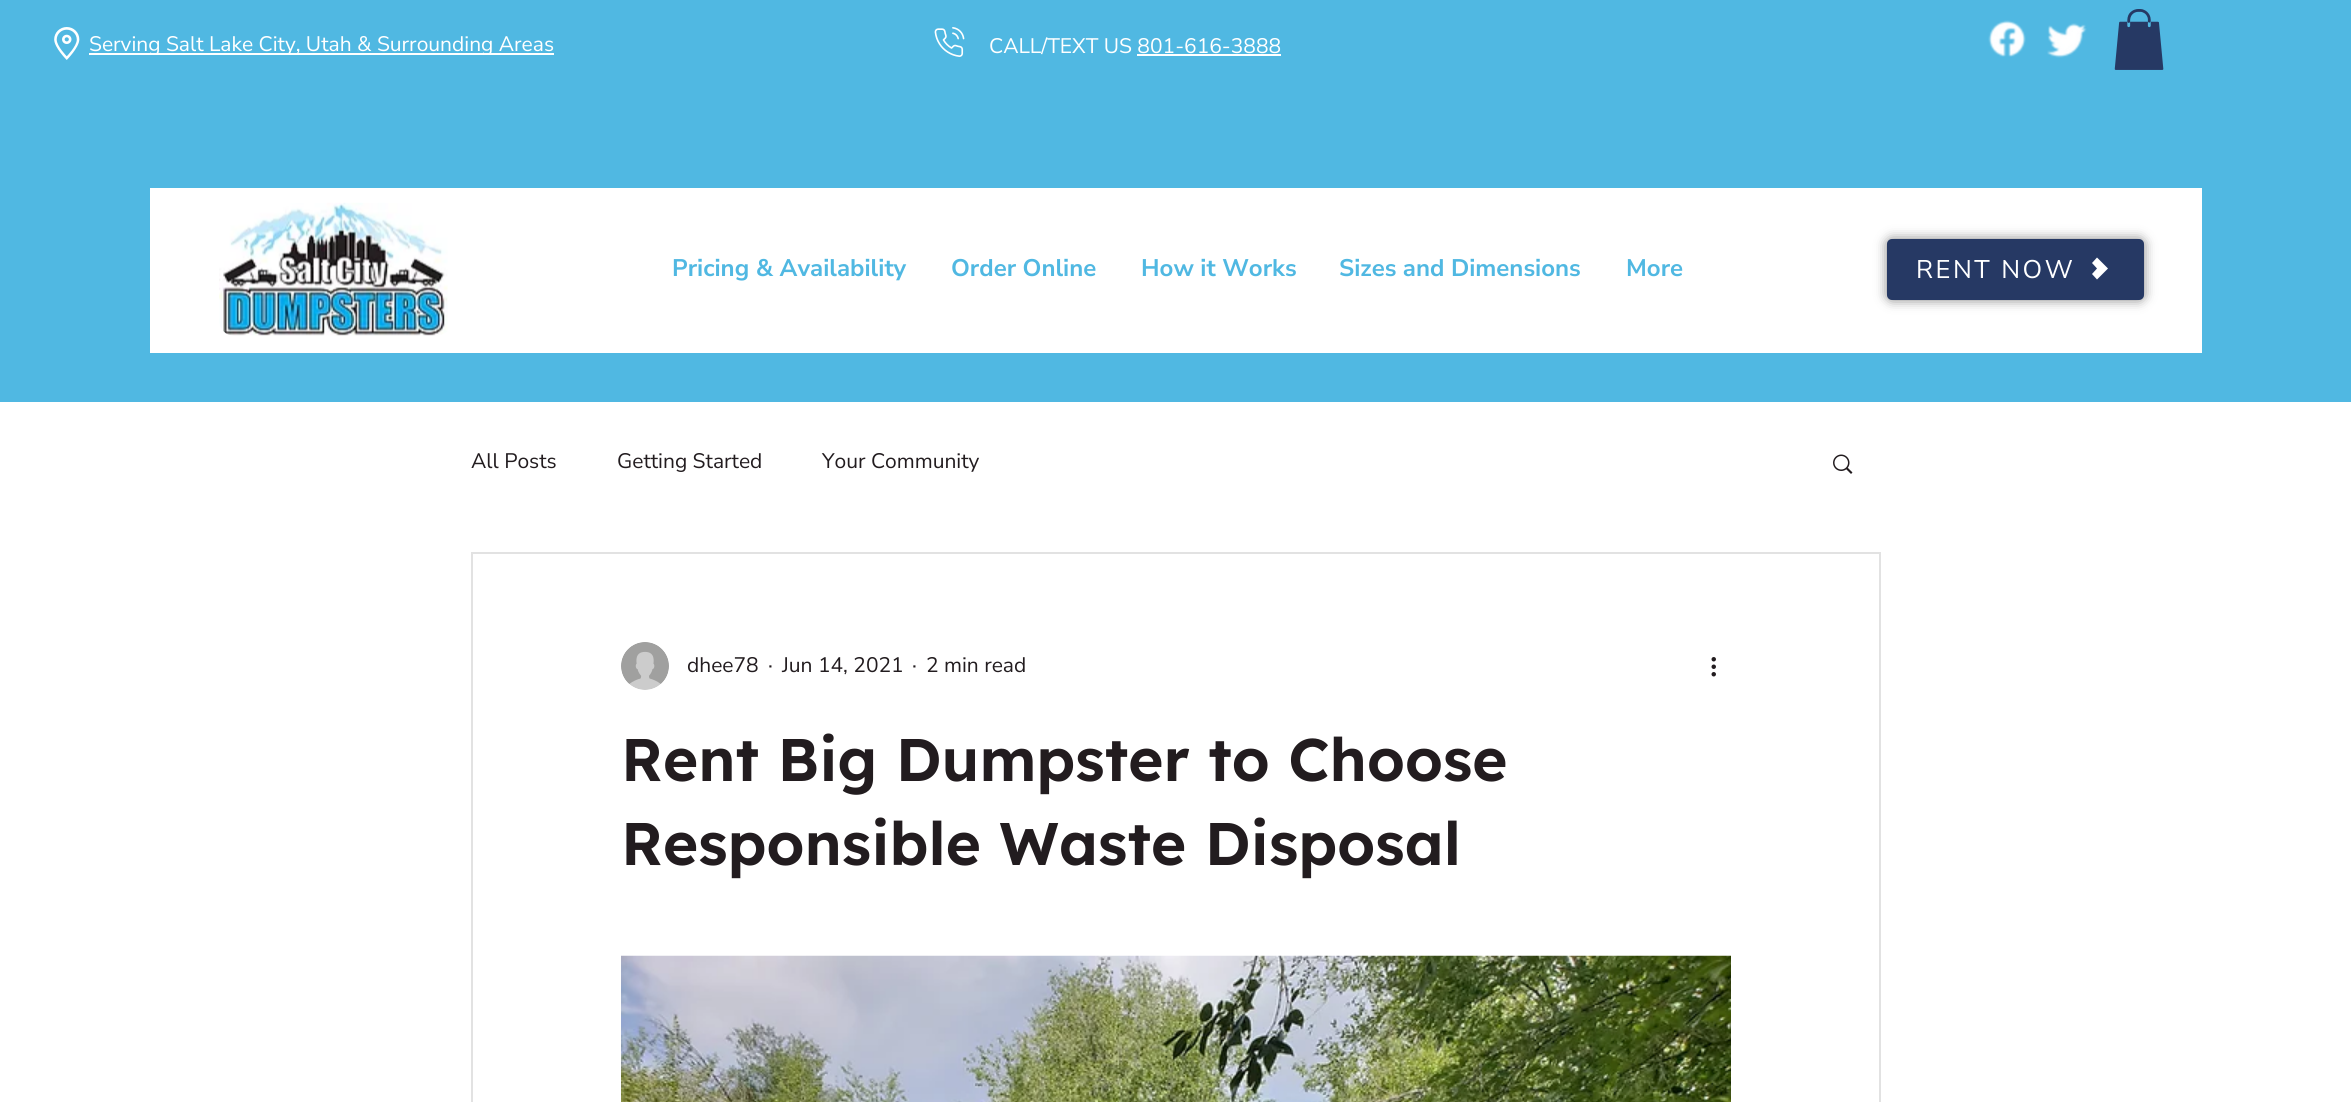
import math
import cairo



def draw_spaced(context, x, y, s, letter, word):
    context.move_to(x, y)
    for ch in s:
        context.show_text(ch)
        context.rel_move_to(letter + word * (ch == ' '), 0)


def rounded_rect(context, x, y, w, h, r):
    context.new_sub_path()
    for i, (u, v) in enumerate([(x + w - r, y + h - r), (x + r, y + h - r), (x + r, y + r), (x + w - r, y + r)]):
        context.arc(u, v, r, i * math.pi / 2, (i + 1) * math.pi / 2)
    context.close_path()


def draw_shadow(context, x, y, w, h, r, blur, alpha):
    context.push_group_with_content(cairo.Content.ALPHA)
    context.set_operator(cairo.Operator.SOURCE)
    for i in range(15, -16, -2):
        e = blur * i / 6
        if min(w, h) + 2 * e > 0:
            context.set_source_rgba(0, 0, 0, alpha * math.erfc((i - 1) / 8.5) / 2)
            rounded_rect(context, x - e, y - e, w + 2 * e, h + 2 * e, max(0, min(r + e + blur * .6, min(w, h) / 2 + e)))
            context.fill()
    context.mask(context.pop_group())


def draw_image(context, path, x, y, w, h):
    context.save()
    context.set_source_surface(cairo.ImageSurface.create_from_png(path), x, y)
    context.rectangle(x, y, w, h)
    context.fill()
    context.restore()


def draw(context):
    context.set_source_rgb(1, 1, 1)
    context.paint()
    context.set_source_rgb(80 / 255, 184 / 255, 226 / 255)
    context.rectangle(0, 0, 2351, 402)
    context.fill()
    draw_image(context, "images/1.png", 54, 27, 26, 33)
    context.set_source_rgb(1, 1, 1)
    context.rectangle(89, 53, 465, 2)
    context.fill()
    draw_image(context, "images/2.png", 934, 27, 31, 30)
    context.rectangle(1137, 54, 144, 2)
    context.fill()
    draw_image(context, "images/3.png", 1988, 20, 38, 37)
    draw_image(context, "images/4.png", 2047, 23, 40, 35)
    draw_image(context, "images/5.png", 2114, 9, 50, 61)
    context.rectangle(150, 188, 2052, 165)
    context.fill()
    draw_image(context, "images/6.png", 219, 202, 229, 134)
    context.set_source_rgb(0, 0, 0)
    draw_shadow(context, 1887, 239, 257, 61, 5, 6, 0.48)
    context.set_source_rgb(38 / 255, 57 / 255, 100 / 255)
    rounded_rect(context, 1887, 239, 257, 61, 5)
    context.fill()
    context.set_source_rgb(1, 1, 1)
    context.new_path()
    context.move_to(2102.5, 263)
    context.line_to(2097, 257.5)
    context.line_to(2092, 263)
    context.line_to(2097, 268.5)
    context.line_to(2092, 274)
    context.line_to(2097, 279.5)
    context.line_to(2108, 268.5)
    context.close_path()
    context.fill()
    draw_image(context, "images/7.png", 1833, 454, 20, 20)
    context.rectangle(472, 553, 1408, 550)
    context.set_source_rgb(226 / 255, 226 / 255, 226 / 255)
    context.stroke()
    draw_image(context, "images/8.png", 621, 642, 48, 48)
    draw_image(context, "images/9.png", 1711, 657, 5, 20)
    draw_image(context, "images/10.png", 621, 955, 1110, 147)
    context.select_font_face("Nunito Sans")
    context.set_font_size(21)
    context.set_source_rgb(1, 1, 1)
    context.move_to(89, 51)
    context.show_text("Serving Salt Lake City, Utah & Surrounding Areas")
    context.move_to(989, 53)
    context.show_text("CALL/TEXT US 801-616-3888")
    context.select_font_face("Nunito Sans", cairo.FontSlant.NORMAL, cairo.FontWeight.BOLD)
    context.set_font_size(24)
    context.set_source_rgb(80 / 255, 184 / 255, 226 / 255)
    context.move_to(672, 276)
    context.show_text("Pricing & Availability")
    context.move_to(951, 276)
    context.show_text("Order Online")
    context.move_to(1141, 276)
    context.show_text("How it Works")
    context.move_to(1339, 276)
    context.show_text("Sizes and Dimensions")
    context.move_to(1626, 276)
    context.show_text("More")
    context.select_font_face("Nunito Sans")
    context.set_font_size(25.5)
    context.set_source_rgb(1, 1, 1)
    draw_spaced(context, 1916, 278, "RENT NOW", 2.5, 0)
    context.set_font_size(21)
    context.set_source_rgb(34 / 255, 28 / 255, 31 / 255)
    context.move_to(471, 468)
    context.show_text("All Posts")
    context.move_to(617, 468)
    context.show_text("Getting Started")
    context.move_to(822, 468)
    context.show_text("Your Community")
    context.move_to(687, 672)
    context.show_text("dhee78")
    context.move_to(768, 672)
    context.show_text("·")
    context.move_to(782, 672)
    context.show_text("Jun 14, 2021")
    context.move_to(912, 672)
    context.show_text("·")
    context.move_to(926, 672)
    context.show_text("2 min read")
    context.select_font_face("Lexend Deca SemiBold")
    context.set_font_size(60)
    context.move_to(621, 781)
    context.show_text("Rent Big Dumpster to Choose")
    context.move_to(621, 865)
    context.show_text("Responsible Waste Disposal")


surface = cairo.ImageSurface(cairo.Format.RGB24, 2351, 1102)
context = cairo.Context(surface)
options = cairo.FontOptions()
options.set_hint_metrics(cairo.HintMetrics.OFF)
options.set_hint_style(cairo.HintStyle.NONE)
context.set_font_options(options)
context.set_miter_limit(4)
draw(context)
surface.write_to_png("out.png")
